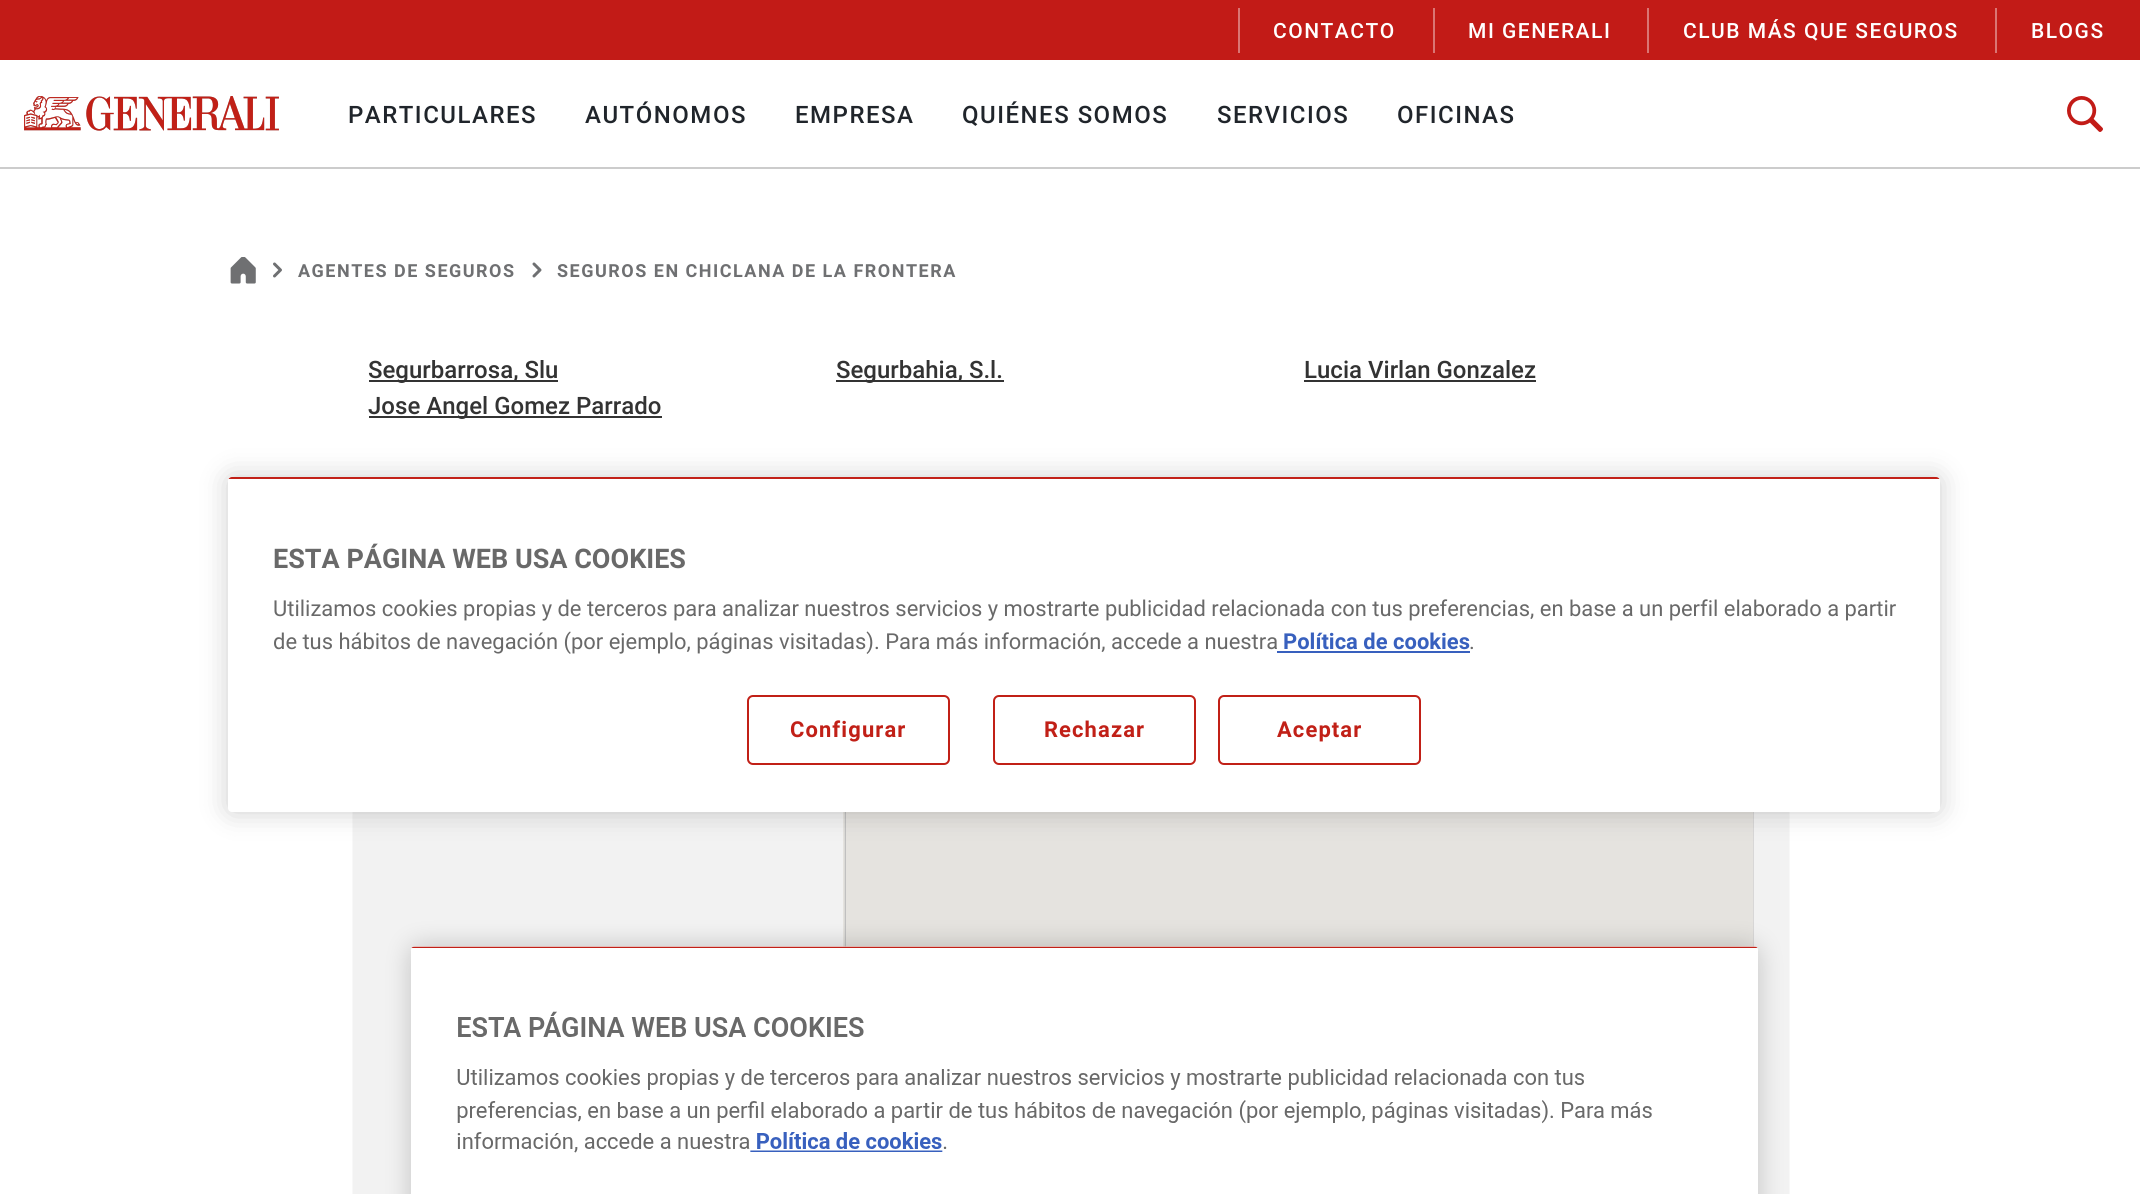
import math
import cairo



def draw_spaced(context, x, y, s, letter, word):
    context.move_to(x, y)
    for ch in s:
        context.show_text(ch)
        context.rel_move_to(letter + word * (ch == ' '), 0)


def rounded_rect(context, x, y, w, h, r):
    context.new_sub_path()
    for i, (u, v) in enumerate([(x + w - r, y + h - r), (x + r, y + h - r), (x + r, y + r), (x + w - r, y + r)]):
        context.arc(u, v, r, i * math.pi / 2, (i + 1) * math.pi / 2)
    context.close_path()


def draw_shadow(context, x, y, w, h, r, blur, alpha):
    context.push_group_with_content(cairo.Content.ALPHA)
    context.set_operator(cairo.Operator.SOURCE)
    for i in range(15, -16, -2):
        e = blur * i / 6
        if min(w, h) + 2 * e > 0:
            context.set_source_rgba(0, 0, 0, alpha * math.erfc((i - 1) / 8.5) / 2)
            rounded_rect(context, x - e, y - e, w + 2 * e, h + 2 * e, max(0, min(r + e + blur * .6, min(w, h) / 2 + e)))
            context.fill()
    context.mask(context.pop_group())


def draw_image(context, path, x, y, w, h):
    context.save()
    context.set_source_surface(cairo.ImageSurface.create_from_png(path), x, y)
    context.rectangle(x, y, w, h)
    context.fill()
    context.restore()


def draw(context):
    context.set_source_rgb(1, 1, 1)
    context.paint()
    context.set_source_rgb(204 / 255, 204 / 255, 204 / 255)
    context.rectangle(0, 167, 2140, 2)
    context.fill()
    context.set_source_rgb(194 / 255, 27 / 255, 23 / 255)
    context.rectangle(0, 0, 2140, 60)
    context.fill()
    draw_image(context, "images/1.png", 24, 96, 255, 35)
    context.set_source_rgb(218 / 255, 118 / 255, 116 / 255)
    context.rectangle(1238, 8, 2, 45)
    context.fill()
    context.rectangle(1433, 8, 2, 45)
    context.fill()
    context.rectangle(1647, 8, 2, 45)
    context.fill()
    context.rectangle(1995, 8, 2, 45)
    context.fill()
    draw_image(context, "images/2.png", 2067, 96, 36, 36)
    draw_image(context, "images/3.png", 230, 257, 26, 27)
    draw_image(context, "images/4.png", 273, 262, 9, 16)
    draw_image(context, "images/5.png", 532, 262, 10, 16)
    context.set_source_rgb(51 / 255, 51 / 255, 51 / 255)
    context.rectangle(369, 380, 189, 2)
    context.fill()
    context.rectangle(836, 380, 168, 2)
    context.fill()
    context.rectangle(1304, 380, 232, 2)
    context.fill()
    context.rectangle(369, 416, 293, 2)
    context.fill()
    draw_image(context, "images/6.png", 230, 811, 1683, 383)
    context.set_source_rgb(0, 0, 0)
    draw_shadow(context, 228, 477, 1712, 335, 4, 13.5, 0.2)
    context.set_source_rgb(1, 1, 1)
    rounded_rect(context, 228, 477, 1712, 335, 4)
    context.fill()
    context.save()
    rounded_rect(context, 228, 477, 1712, 335, 4)
    context.clip()
    context.set_source_rgb(193 / 255, 32 / 255, 23 / 255)
    context.rectangle(228, 477, 1712, 2)
    context.fill()
    context.restore()
    context.set_source_rgb(56 / 255, 96 / 255, 190 / 255)
    context.rectangle(1277, 651, 193, 2)
    context.fill()
    rounded_rect(context, 748, 696, 201, 68, 5)
    context.set_source_rgb(193 / 255, 32 / 255, 23 / 255)
    context.stroke()
    rounded_rect(context, 994, 696, 201, 68, 5)
    context.stroke()
    rounded_rect(context, 1219, 696, 201, 68, 5)
    context.stroke()
    context.select_font_face("Roboto Medium")
    context.set_font_size(21)
    context.set_source_rgb(1, 1, 1)
    draw_spaced(context, 1273, 38, "CONTACTO", 1.5, 0)
    draw_spaced(context, 1468, 38, "MI GENERALI", 1.5, 0)
    draw_spaced(context, 1683, 38, "CLUB MÁS QUE SEGUROS", 1.5, 0)
    draw_spaced(context, 2031, 38, "BLOGS", 1.5, 0)
    context.set_font_size(24)
    context.set_source_rgb(32 / 255, 37 / 255, 43 / 255)
    draw_spaced(context, 348, 123, "PARTICULARES", 1.5, 0)
    draw_spaced(context, 585, 123, "AUTÓNOMOS", 1.5, 0)
    draw_spaced(context, 795, 123, "EMPRESA", 1.5, 0)
    draw_spaced(context, 962, 123, "QUIÉNES SOMOS", 1.5, 0)
    draw_spaced(context, 1217, 123, "SERVICIOS", 1.5, 0)
    draw_spaced(context, 1397, 123, "OFICINAS", 1.5, 0)
    context.select_font_face("Roboto", cairo.FontSlant.NORMAL, cairo.FontWeight.BOLD)
    context.set_font_size(18)
    context.set_source_rgb(111 / 255, 112 / 255, 114 / 255)
    draw_spaced(context, 298, 277, "AGENTES DE SEGUROS", 1.5, 0)
    draw_spaced(context, 557, 277, "SEGUROS EN CHICLANA DE LA FRONTERA", 1.5, 0)
    context.select_font_face("Roboto Medium")
    context.set_font_size(24)
    context.set_source_rgb(51 / 255, 51 / 255, 51 / 255)
    context.move_to(368, 378)
    context.show_text("Segurbarrosa, Slu")
    context.move_to(836, 378)
    context.show_text("Segurbahia, S.l.")
    context.move_to(1304, 378)
    context.show_text("Lucia Virlan Gonzalez")
    context.move_to(368, 414)
    context.show_text("Jose Angel Gomez Parrado")
    context.select_font_face("Roboto", cairo.FontSlant.NORMAL, cairo.FontWeight.BOLD)
    context.set_font_size(27)
    context.set_source_rgb(105 / 255, 105 / 255, 105 / 255)
    context.move_to(273, 568)
    context.show_text("ESTA PÁGINA WEB USA COOKIES")
    context.select_font_face("Roboto")
    context.set_font_size(21.95)
    context.move_to(273, 616)
    context.show_text("Utilizamos cookies propias y de terceros para analizar nuestros servicios y mostrarte publicidad relacionada con tus preferencias, en base a un perfil elaborado a partir")
    context.move_to(273, 649)
    context.show_text("de tus hábitos de navegación (por ejemplo, páginas visitadas). Para más información, accede a nuestra")
    context.select_font_face("Roboto", cairo.FontSlant.NORMAL, cairo.FontWeight.BOLD)
    context.set_source_rgb(56 / 255, 96 / 255, 190 / 255)
    context.move_to(1283, 649)
    context.show_text("Política de cookies")
    context.select_font_face("Roboto")
    context.set_source_rgb(105 / 255, 105 / 255, 105 / 255)
    context.move_to(1469, 649)
    context.show_text(".")
    context.select_font_face("Roboto", cairo.FontSlant.NORMAL, cairo.FontWeight.BOLD)
    context.set_source_rgb(193 / 255, 32 / 255, 23 / 255)
    draw_spaced(context, 790, 737, "Configurar", 1.1, 0)
    draw_spaced(context, 1044, 737, "Rechazar", 1.1, 0)
    draw_spaced(context, 1277, 737, "Aceptar", 1.1, 0)


surface = cairo.ImageSurface(cairo.Format.RGB24, 2140, 1194)
context = cairo.Context(surface)
options = cairo.FontOptions()
options.set_hint_metrics(cairo.HintMetrics.OFF)
options.set_hint_style(cairo.HintStyle.NONE)
context.set_font_options(options)
context.set_miter_limit(4)
draw(context)
surface.write_to_png("out.png")
